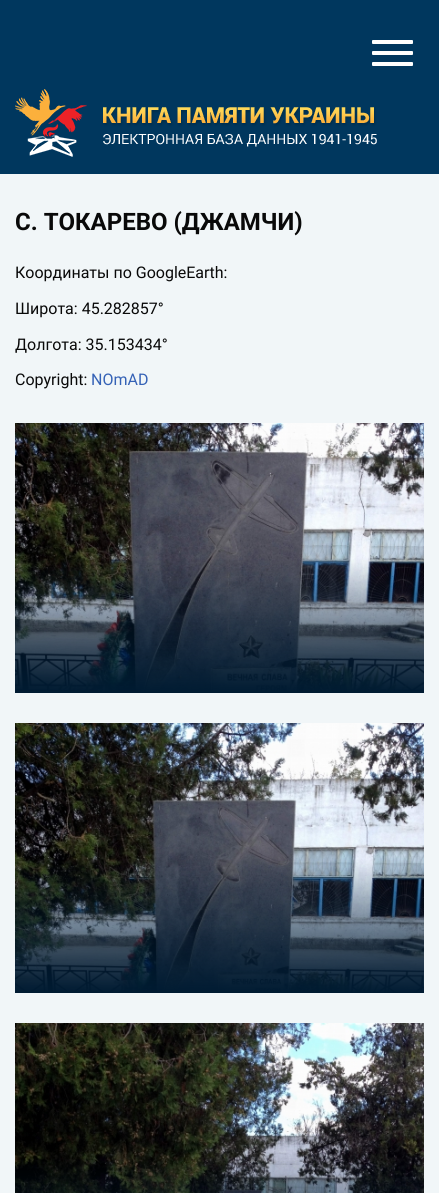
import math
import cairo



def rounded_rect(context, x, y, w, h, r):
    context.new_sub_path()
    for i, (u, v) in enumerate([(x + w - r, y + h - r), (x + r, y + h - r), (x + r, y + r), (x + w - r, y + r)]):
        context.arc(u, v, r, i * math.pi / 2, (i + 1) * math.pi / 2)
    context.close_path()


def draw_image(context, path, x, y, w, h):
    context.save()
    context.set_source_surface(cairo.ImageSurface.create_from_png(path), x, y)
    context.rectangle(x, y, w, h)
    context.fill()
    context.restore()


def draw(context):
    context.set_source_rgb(241 / 255, 246 / 255, 248 / 255)
    context.paint()
    context.set_source_rgb(0, 55 / 255, 94 / 255)
    context.rectangle(0, 0, 439, 174)
    context.fill()
    context.set_source_rgb(1, 1, 1)
    rounded_rect(context, 372, 40, 41, 4, 1)
    context.fill()
    rounded_rect(context, 372, 51, 41, 4, 1)
    context.fill()
    rounded_rect(context, 372, 62, 41, 4, 1)
    context.fill()
    draw_image(context, "images/1.png", 15, 89, 362, 68)
    draw_image(context, "images/2.png", 15, 423, 409, 270)
    draw_image(context, "images/3.png", 15, 723, 409, 270)
    draw_image(context, "images/4.png", 15, 1023, 409, 170)
    context.select_font_face("Roboto", cairo.FontSlant.NORMAL, cairo.FontWeight.BOLD)
    context.set_font_size(24)
    context.set_source_rgb(9 / 255, 9 / 255, 9 / 255)
    context.move_to(15, 230)
    context.show_text("С. ТОКАРЕВО (ДЖАМЧИ)")
    context.select_font_face("Roboto")
    context.set_font_size(16)
    context.move_to(15, 278)
    context.show_text("Координаты по GoogleEarth:")
    context.move_to(15, 314)
    context.show_text("Широта: 45.282857°")
    context.move_to(15, 350)
    context.show_text("Долгота: 35.153434°")
    context.move_to(15, 385)
    context.show_text("Copyright:")
    context.set_source_rgb(53 / 255, 98 / 255, 182 / 255)
    context.move_to(91, 385)
    context.show_text("NOmAD")


surface = cairo.ImageSurface(cairo.Format.RGB24, 439, 1193)
context = cairo.Context(surface)
options = cairo.FontOptions()
options.set_hint_metrics(cairo.HintMetrics.OFF)
options.set_hint_style(cairo.HintStyle.NONE)
context.set_font_options(options)
context.set_miter_limit(4)
draw(context)
surface.write_to_png("out.png")
